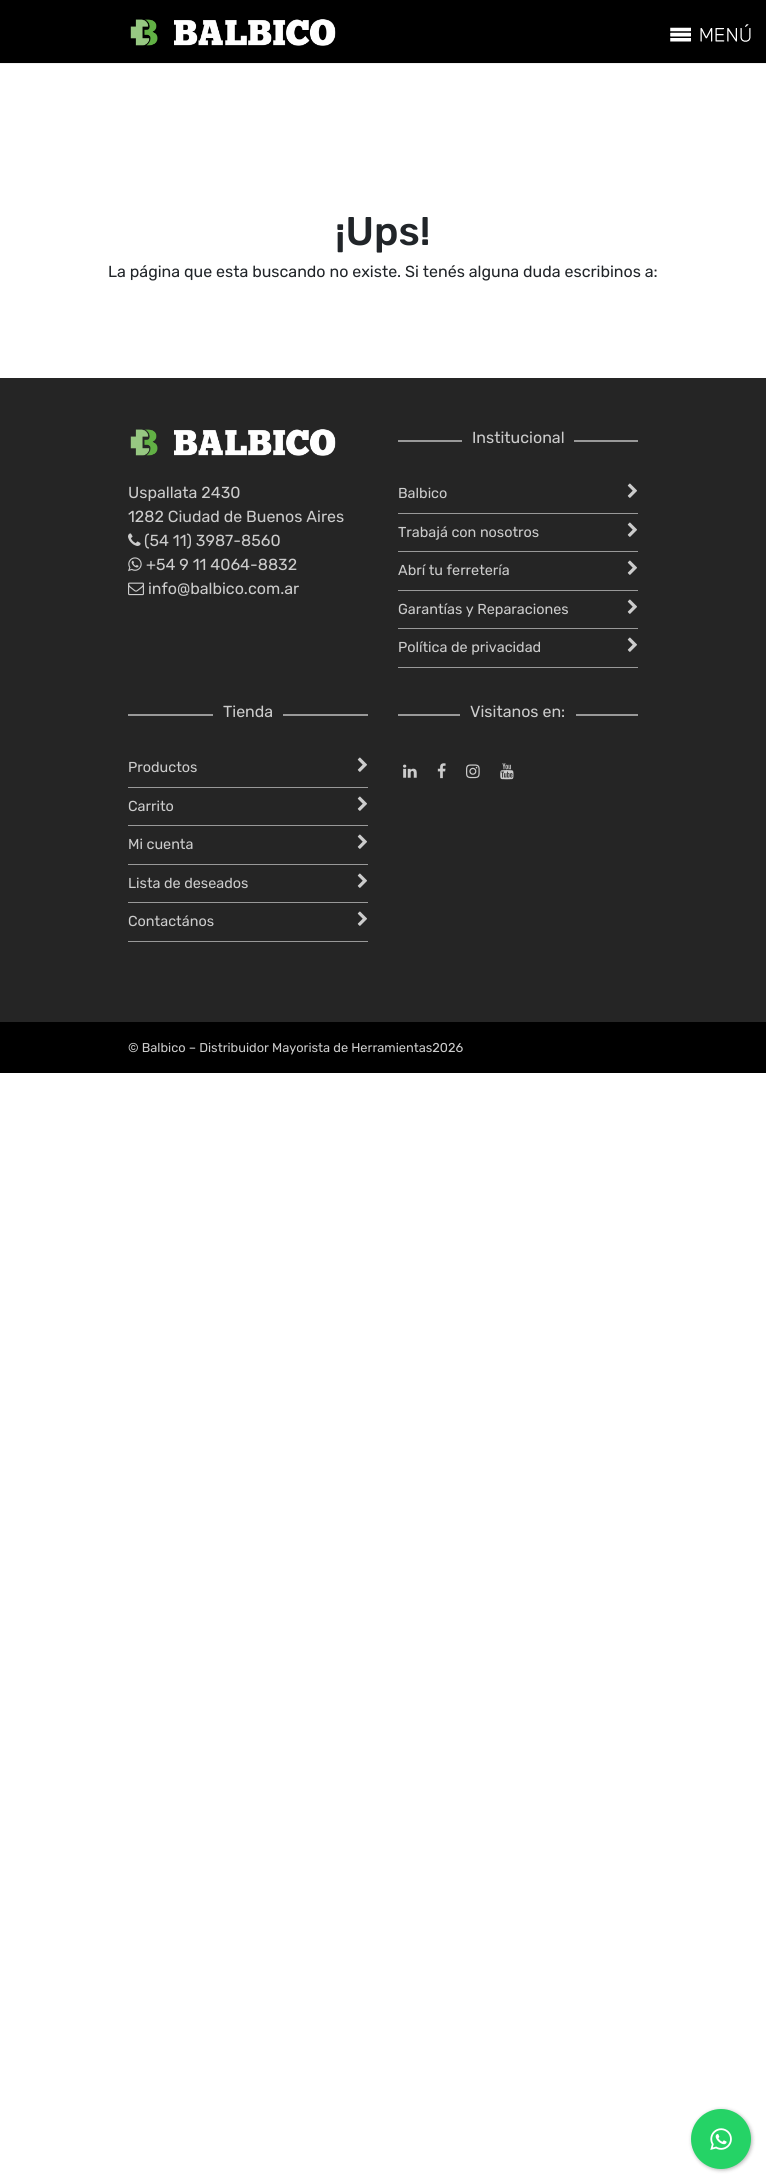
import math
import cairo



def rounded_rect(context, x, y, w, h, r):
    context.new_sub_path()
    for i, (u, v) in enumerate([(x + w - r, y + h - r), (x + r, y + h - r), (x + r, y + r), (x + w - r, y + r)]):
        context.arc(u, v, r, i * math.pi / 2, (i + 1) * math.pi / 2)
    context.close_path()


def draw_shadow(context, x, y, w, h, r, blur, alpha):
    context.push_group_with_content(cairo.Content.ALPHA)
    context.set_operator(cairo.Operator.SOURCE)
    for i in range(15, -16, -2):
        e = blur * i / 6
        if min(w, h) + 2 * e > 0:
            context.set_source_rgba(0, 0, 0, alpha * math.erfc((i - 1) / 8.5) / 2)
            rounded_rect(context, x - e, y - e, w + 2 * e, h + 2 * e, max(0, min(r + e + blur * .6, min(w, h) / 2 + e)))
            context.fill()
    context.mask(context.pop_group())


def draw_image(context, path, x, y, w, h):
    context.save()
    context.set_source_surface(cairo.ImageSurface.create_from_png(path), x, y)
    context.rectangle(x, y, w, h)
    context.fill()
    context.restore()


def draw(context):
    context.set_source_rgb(1, 1, 1)
    context.paint()
    context.set_source_rgb(0, 0, 0)
    context.rectangle(0, 0, 766, 63)
    context.fill()
    draw_image(context, "images/1.png", 130, 19, 206, 27)
    draw_image(context, "images/2.png", 670, 24, 81, 18)
    context.set_source_rgb(240 / 255, 240 / 255, 240 / 255)
    context.rectangle(0, 63, 766, 1)
    context.fill()
    context.set_source_rgb(37 / 255, 37 / 255, 37 / 255)
    context.rectangle(0, 378, 766, 644)
    context.fill()
    draw_image(context, "images/3.png", 130, 429, 206, 27)
    draw_image(context, "images/4.png", 128, 533, 13, 13)
    draw_image(context, "images/5.png", 128, 557, 14, 15)
    draw_image(context, "images/6.png", 128, 582, 16, 14)
    context.set_source_rgb(153 / 255, 153 / 255, 153 / 255)
    context.rectangle(398, 440, 240, 2)
    context.fill()
    context.set_source_rgb(37 / 255, 37 / 255, 37 / 255)
    context.rectangle(462, 440, 112, 2)
    context.fill()
    context.set_source_rgb(153 / 255, 153 / 255, 153 / 255)
    context.rectangle(398, 513, 240, 1)
    context.fill()
    draw_image(context, "images/7.png", 627, 483, 10, 15)
    context.rectangle(398, 551, 240, 1)
    context.fill()
    draw_image(context, "images/7.png", 627, 522, 10, 15)
    context.rectangle(398, 590, 240, 1)
    context.fill()
    draw_image(context, "images/7.png", 627, 560, 10, 15)
    context.rectangle(398, 628, 240, 1)
    context.fill()
    draw_image(context, "images/7.png", 627, 599, 10, 15)
    context.rectangle(398, 667, 240, 1)
    context.fill()
    draw_image(context, "images/7.png", 627, 637, 10, 15)
    context.rectangle(128, 714, 240, 2)
    context.fill()
    context.set_source_rgb(37 / 255, 37 / 255, 37 / 255)
    context.rectangle(213, 714, 70, 2)
    context.fill()
    context.set_source_rgb(153 / 255, 153 / 255, 153 / 255)
    context.rectangle(128, 787, 240, 1)
    context.fill()
    draw_image(context, "images/7.png", 357, 757, 10, 15)
    context.rectangle(128, 825, 240, 1)
    context.fill()
    draw_image(context, "images/7.png", 357, 796, 10, 15)
    context.rectangle(128, 864, 240, 1)
    context.fill()
    draw_image(context, "images/7.png", 357, 834, 10, 15)
    context.rectangle(128, 902, 240, 1)
    context.fill()
    draw_image(context, "images/7.png", 357, 873, 10, 15)
    context.rectangle(128, 941, 240, 1)
    context.fill()
    draw_image(context, "images/7.png", 357, 911, 10, 15)
    context.rectangle(398, 714, 240, 2)
    context.fill()
    context.set_source_rgb(37 / 255, 37 / 255, 37 / 255)
    context.rectangle(460, 714, 116, 2)
    context.fill()
    draw_image(context, "images/8.png", 403, 764, 14, 14)
    draw_image(context, "images/9.png", 437, 763, 9, 16)
    draw_image(context, "images/10.png", 466, 764, 14, 15)
    draw_image(context, "images/11.png", 500, 763, 14, 17)
    context.set_source_rgb(0, 0, 0)
    context.rectangle(0, 1022, 766, 51)
    context.fill()
    context.set_source_rgb(0, 0, 0)
    draw_shadow(context, 692, 2110, 60, 60, 30, 2, 0.3)
    context.set_source_rgb(37 / 255, 211 / 255, 102 / 255)
    context.arc(721, 2139, 30, 0, 2 * math.pi)
    context.fill()
    draw_image(context, "images/12.png", 710, 2128, 22, 22)
    context.select_font_face("Rubik Medium")
    context.set_font_size(40)
    context.set_source_rgb(33 / 255, 37 / 255, 41 / 255)
    context.move_to(335, 245)
    context.show_text("¡Ups!")
    context.select_font_face("Rubik")
    context.set_font_size(16)
    context.move_to(108, 277)
    context.show_text("La página que esta buscando no existe. Si tenés alguna duda escribinos a:")
    context.set_source_rgb(204 / 255, 204 / 255, 204 / 255)
    context.move_to(128, 498)
    context.show_text("Uspallata 2430")
    context.move_to(128, 522)
    context.show_text("1282 Ciudad de Buenos Aires")
    context.move_to(144, 546)
    context.show_text("(54 11) 3987-8560")
    context.move_to(146, 570)
    context.show_text("+54 9 11 4064-8832")
    context.move_to(148, 594)
    context.show_text("info@balbico.com.ar")
    context.move_to(472, 443)
    context.show_text("Institucional")
    context.set_font_size(14.4)
    context.move_to(398, 498)
    context.show_text("Balbico")
    context.move_to(398, 537)
    context.show_text("Trabajá con nosotros")
    context.move_to(398, 575)
    context.show_text("Abrí tu ferretería")
    context.move_to(398, 614)
    context.show_text("Garantías y Reparaciones")
    context.move_to(398, 652)
    context.show_text("Política de privacidad")
    context.set_font_size(16)
    context.move_to(223, 717)
    context.show_text("Tienda")
    context.set_font_size(14.4)
    context.move_to(128, 772)
    context.show_text("Productos")
    context.move_to(128, 811)
    context.show_text("Carrito")
    context.move_to(128, 849)
    context.show_text("Mi cuenta")
    context.move_to(128, 888)
    context.show_text("Lista de deseados")
    context.move_to(128, 926)
    context.show_text("Contactános")
    context.set_font_size(16)
    context.move_to(470, 717)
    context.show_text("Visitanos en:")
    context.set_font_size(12.8)
    context.move_to(128, 1052)
    context.show_text("© Balbico – Distribuidor Mayorista de Herramientas2026")


surface = cairo.ImageSurface(cairo.Format.RGB24, 766, 2184)
context = cairo.Context(surface)
options = cairo.FontOptions()
options.set_hint_metrics(cairo.HintMetrics.OFF)
options.set_hint_style(cairo.HintStyle.NONE)
context.set_font_options(options)
context.set_miter_limit(4)
draw(context)
surface.write_to_png("out.png")
